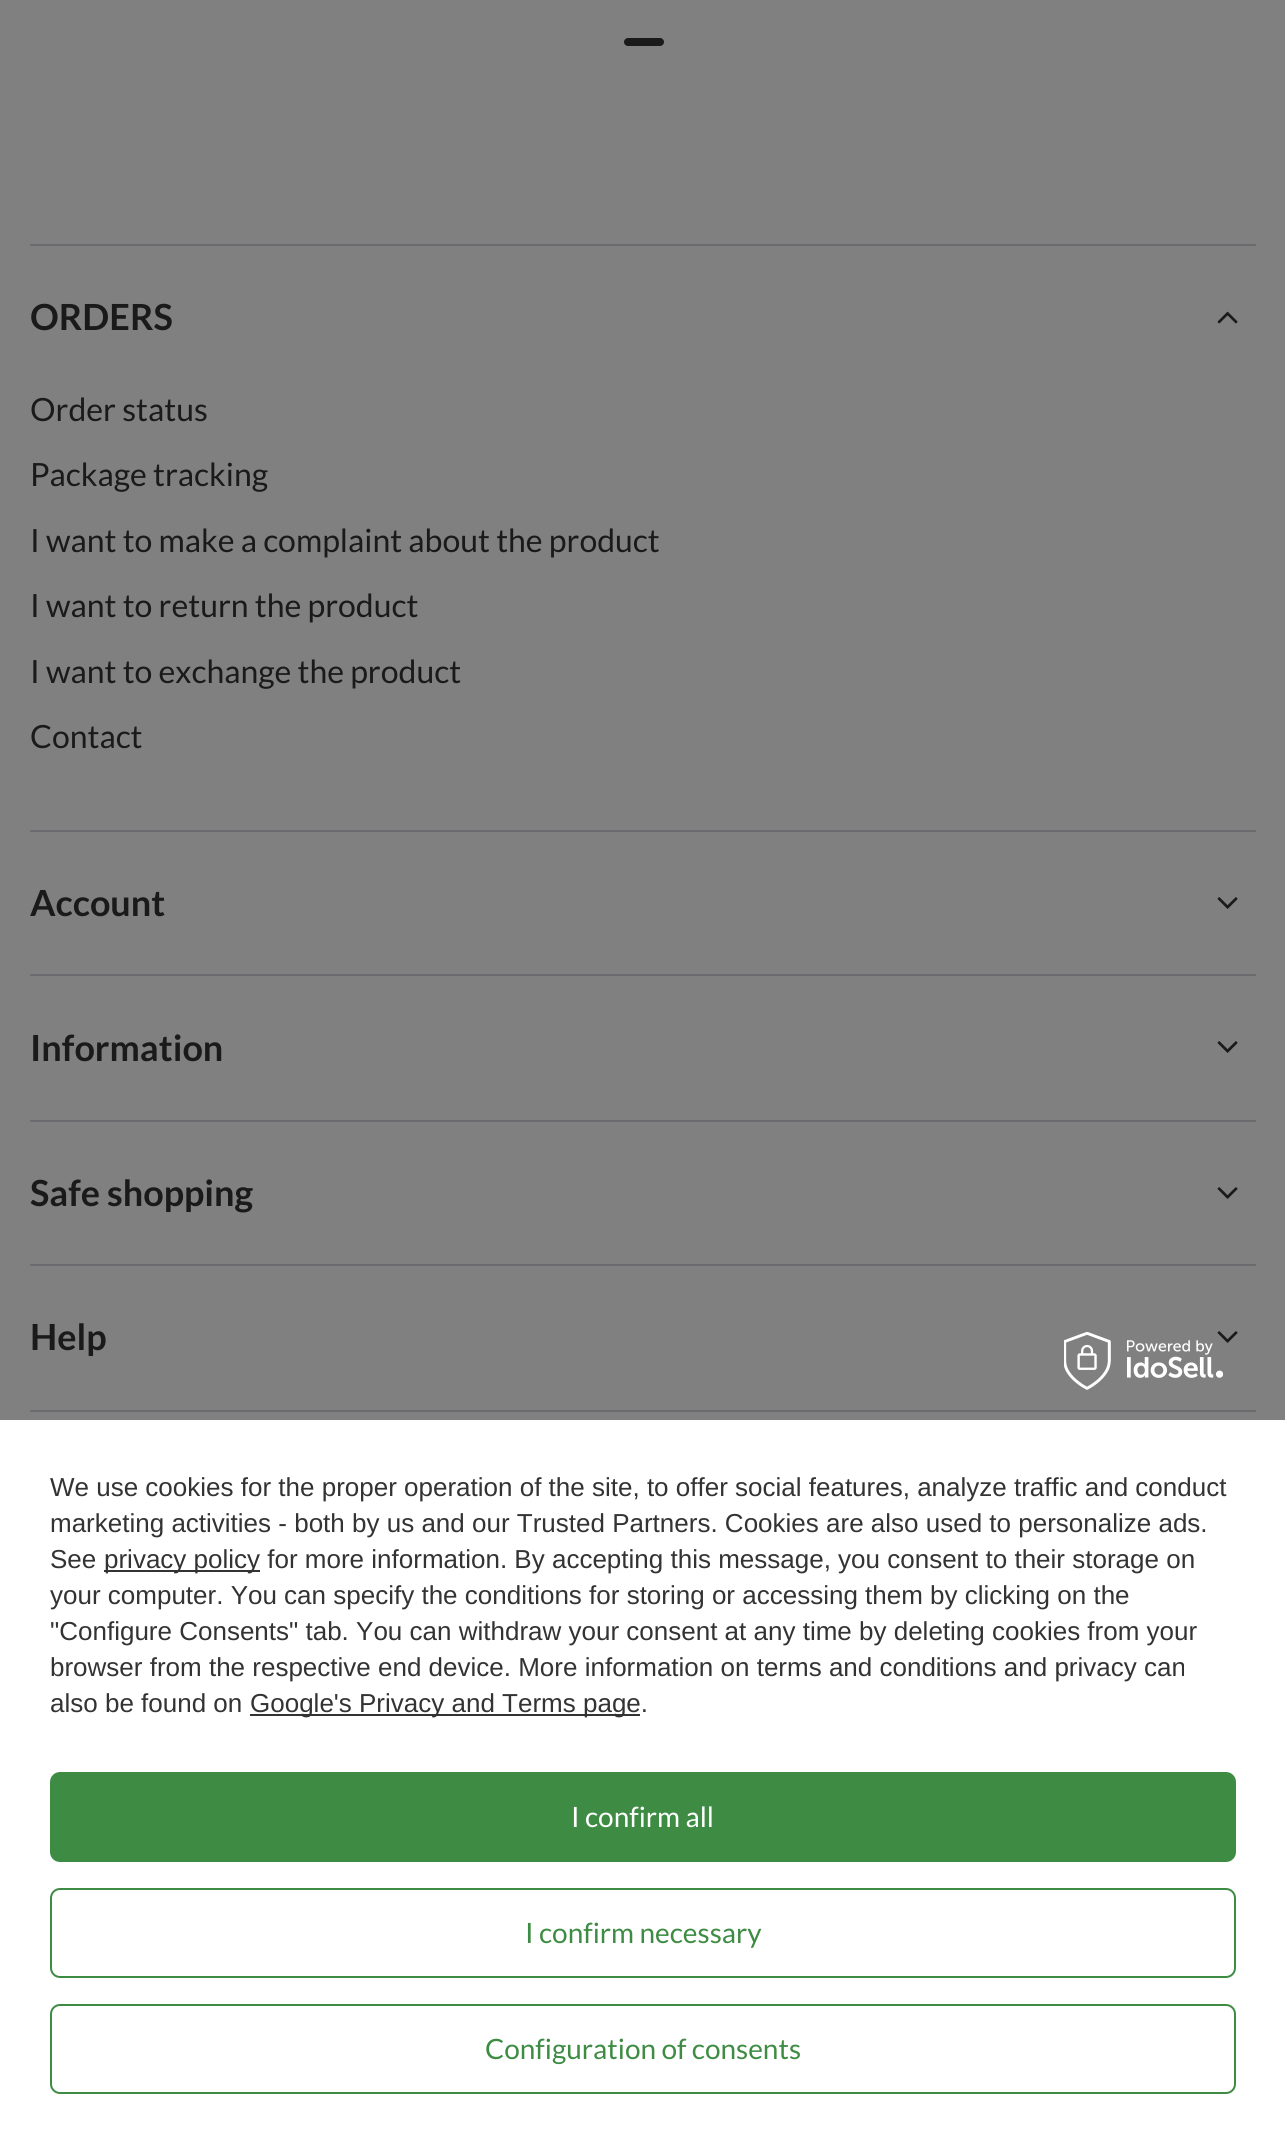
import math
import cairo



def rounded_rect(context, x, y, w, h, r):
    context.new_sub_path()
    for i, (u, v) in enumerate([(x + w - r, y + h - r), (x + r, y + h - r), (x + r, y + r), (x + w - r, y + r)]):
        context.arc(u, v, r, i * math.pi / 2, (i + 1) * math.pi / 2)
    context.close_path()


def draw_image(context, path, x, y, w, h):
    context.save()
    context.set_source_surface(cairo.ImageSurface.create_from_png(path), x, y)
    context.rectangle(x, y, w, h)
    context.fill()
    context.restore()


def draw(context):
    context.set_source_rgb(128 / 255, 128 / 255, 128 / 255)
    context.paint()
    context.set_source_rgb(26 / 255, 26 / 255, 26 / 255)
    rounded_rect(context, 624, 38, 40, 8, 4)
    context.fill()
    context.set_source_rgb(105 / 255, 107 / 255, 110 / 255)
    context.rectangle(30, 244, 1226, 2)
    context.fill()
    context.rectangle(30, 830, 1226, 2)
    context.fill()
    draw_image(context, "images/1.png", 1217, 311, 21, 13)
    context.rectangle(30, 974, 1226, 2)
    context.fill()
    draw_image(context, "images/2.png", 1217, 897, 21, 12)
    context.rectangle(30, 1120, 1226, 2)
    context.fill()
    draw_image(context, "images/2.png", 1217, 1041, 21, 12)
    context.rectangle(30, 1264, 1226, 2)
    context.fill()
    draw_image(context, "images/2.png", 1217, 1187, 21, 12)
    context.rectangle(30, 1410, 1226, 2)
    context.fill()
    draw_image(context, "images/2.png", 1217, 1331, 21, 12)
    context.set_source_rgb(1, 1, 1)
    context.rectangle(0, 1420, 1285, 723)
    context.fill()
    draw_image(context, "images/3.png", 1064, 1332, 159, 58)
    context.set_source_rgb(51 / 255, 51 / 255, 51 / 255)
    context.rectangle(104, 1570, 156, 2)
    context.fill()
    context.rectangle(250, 1714, 390, 2)
    context.fill()
    context.set_source_rgb(62 / 255, 140 / 255, 67 / 255)
    rounded_rect(context, 51, 1773, 1184, 88, 9)
    context.fill_preserve()
    context.stroke()
    rounded_rect(context, 51, 1889, 1184, 88, 9)
    context.stroke()
    rounded_rect(context, 51, 2005, 1184, 88, 9)
    context.stroke()
    context.select_font_face("Lato", cairo.FontSlant.NORMAL, cairo.FontWeight.BOLD)
    context.set_font_size(36)
    context.set_source_rgb(26 / 255, 26 / 255, 26 / 255)
    context.move_to(30, 330)
    context.show_text("ORDERS")
    context.select_font_face("Lato")
    context.set_font_size(32)
    context.move_to(30, 421)
    context.show_text("Order status")
    context.move_to(30, 486)
    context.show_text("Package tracking")
    context.move_to(30, 552)
    context.show_text("I want to make a complaint about the product")
    context.move_to(30, 617)
    context.show_text("I want to return the product")
    context.move_to(30, 683)
    context.show_text("I want to exchange the product")
    context.move_to(30, 748)
    context.show_text("Contact")
    context.select_font_face("Lato", cairo.FontSlant.NORMAL, cairo.FontWeight.BOLD)
    context.set_font_size(36)
    context.move_to(30, 916)
    context.show_text("Account")
    context.move_to(30, 1061)
    context.show_text("Information")
    context.move_to(30, 1206)
    context.show_text("Safe shopping")
    context.move_to(30, 1350)
    context.show_text("Help")
    context.select_font_face("Liberation Sans")
    context.set_font_size(26)
    context.set_source_rgb(51 / 255, 51 / 255, 51 / 255)
    context.move_to(50, 1496)
    context.show_text("We use cookies for the proper operation of the site, to offer social features, analyze traffic and conduct")
    context.move_to(50, 1532)
    context.show_text("marketing activities - both by us and our Trusted Partners. Cookies are also used to personalize ads.")
    context.move_to(50, 1568)
    context.show_text("See")
    context.move_to(104, 1568)
    context.show_text("privacy policy for more information. By accepting this message, you consent to their storage on")
    context.move_to(50, 1604)
    context.show_text("your computer. You can specify the conditions for storing or accessing them by clicking on the")
    context.move_to(50, 1640)
    context.show_text("\"Configure Consents\" tab. You can withdraw your consent at any time by deleting cookies from your")
    context.move_to(50, 1676)
    context.show_text("browser from the respective end device. More information on terms and conditions and privacy can")
    context.move_to(50, 1712)
    context.show_text("also be found on")
    context.move_to(250, 1712)
    context.show_text("Google's Privacy and Terms page.")
    context.select_font_face("Lato")
    context.set_font_size(28)
    context.set_source_rgb(1, 1, 1)
    context.move_to(571, 1827)
    context.show_text("I confirm all")
    context.set_source_rgb(62 / 255, 140 / 255, 67 / 255)
    context.move_to(525, 1943)
    context.show_text("I confirm necessary")
    context.move_to(485, 2059)
    context.show_text("Configuration of consents")


surface = cairo.ImageSurface(cairo.Format.RGB24, 1285, 2143)
context = cairo.Context(surface)
options = cairo.FontOptions()
options.set_hint_metrics(cairo.HintMetrics.OFF)
options.set_hint_style(cairo.HintStyle.NONE)
context.set_font_options(options)
context.set_miter_limit(4)
draw(context)
surface.write_to_png("out.png")
